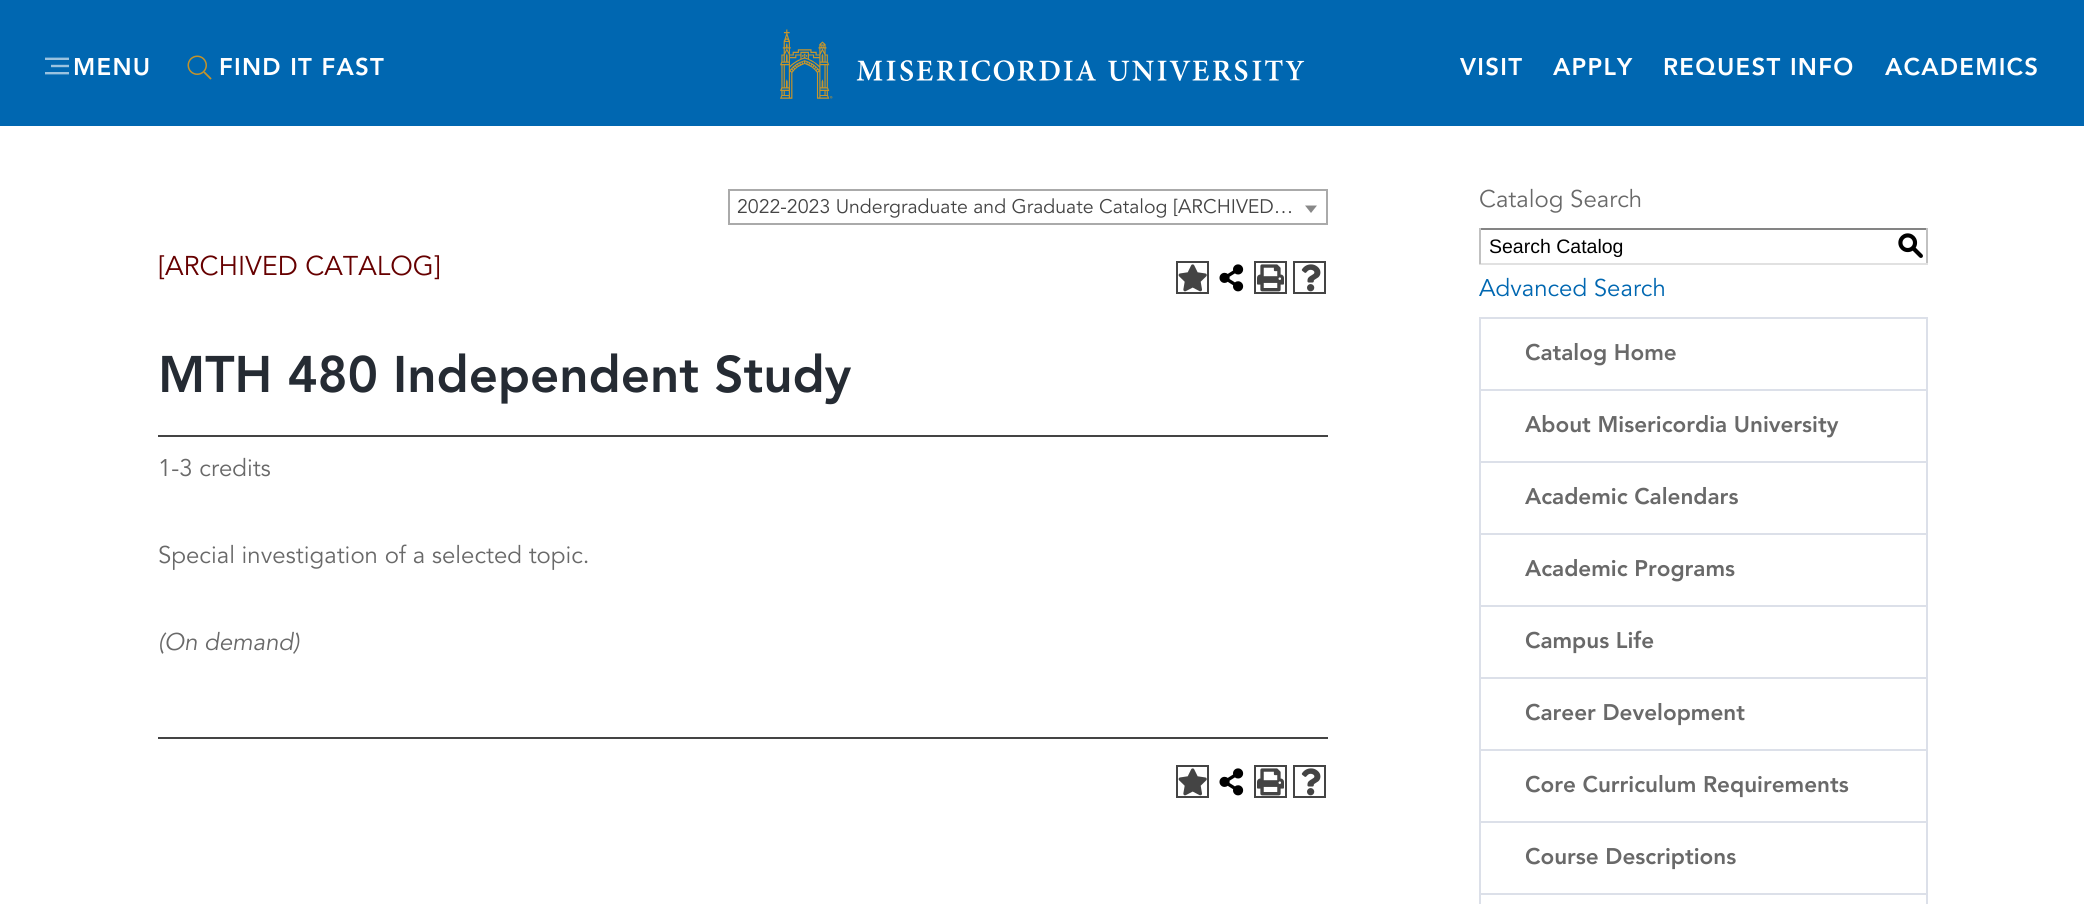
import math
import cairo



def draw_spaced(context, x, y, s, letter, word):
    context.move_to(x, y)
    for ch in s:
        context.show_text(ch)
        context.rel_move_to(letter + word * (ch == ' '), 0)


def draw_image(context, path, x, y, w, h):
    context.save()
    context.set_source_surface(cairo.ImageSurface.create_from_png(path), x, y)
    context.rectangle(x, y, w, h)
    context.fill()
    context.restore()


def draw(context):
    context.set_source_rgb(1, 1, 1)
    context.paint()
    context.set_source_rgb(0, 103 / 255, 177 / 255)
    context.rectangle(0, 0, 2084, 126)
    context.fill()
    draw_image(context, "images/1.png", 45, 57, 24, 18)
    draw_image(context, "images/2.png", 187, 55, 25, 25)
    draw_image(context, "images/3.png", 780, 29, 525, 70)
    context.rectangle(1177, 262, 31, 31)
    context.set_source_rgb(68 / 255, 68 / 255, 68 / 255)
    context.stroke()
    draw_image(context, "images/4.png", 1178, 264, 29, 28)
    draw_image(context, "images/5.png", 1219, 264, 25, 28)
    context.rectangle(1255, 262, 31, 31)
    context.stroke()
    draw_image(context, "images/6.png", 1257, 264, 27, 28)
    context.rectangle(1294, 262, 31, 31)
    context.stroke()
    draw_image(context, "images/7.png", 1301, 264, 20, 28)
    context.rectangle(158, 435, 1170, 2)
    context.fill()
    context.rectangle(158, 737, 1170, 2)
    context.fill()
    context.rectangle(1177, 766, 31, 31)
    context.stroke()
    draw_image(context, "images/4.png", 1178, 768, 29, 28)
    draw_image(context, "images/5.png", 1219, 768, 25, 28)
    context.rectangle(1255, 766, 31, 31)
    context.stroke()
    draw_image(context, "images/6.png", 1257, 768, 27, 28)
    context.rectangle(1294, 766, 31, 31)
    context.stroke()
    draw_image(context, "images/7.png", 1301, 768, 20, 28)
    context.set_source_rgb(132 / 255, 132 / 255, 132 / 255)
    context.rectangle(1479, 228, 449, 2)
    context.fill()
    context.set_source_rgb(193 / 255, 193 / 255, 193 / 255)
    context.rectangle(1926, 228, 2, 36)
    context.fill()
    context.set_source_rgb(225 / 255, 225 / 255, 225 / 255)
    context.rectangle(1479, 263, 449, 2)
    context.fill()
    context.set_source_rgb(193 / 255, 193 / 255, 193 / 255)
    context.rectangle(1479, 228, 2, 36)
    context.fill()
    context.set_source_rgb(220 / 255, 224 / 255, 233 / 255)
    context.rectangle(1479, 317, 449, 2)
    context.fill()
    context.rectangle(1926, 317, 2, 587)
    context.fill()
    context.rectangle(1479, 317, 2, 587)
    context.fill()
    context.rectangle(1481, 389, 445, 2)
    context.fill()
    context.rectangle(1481, 461, 445, 2)
    context.fill()
    context.rectangle(1481, 533, 445, 2)
    context.fill()
    context.rectangle(1481, 605, 445, 2)
    context.fill()
    context.rectangle(1481, 677, 445, 2)
    context.fill()
    context.rectangle(1481, 749, 445, 2)
    context.fill()
    context.rectangle(1481, 821, 445, 2)
    context.fill()
    context.rectangle(1481, 893, 445, 2)
    context.fill()
    context.rectangle(729, 190, 598, 34)
    context.set_source_rgb(170 / 255, 170 / 255, 170 / 255)
    context.stroke()
    context.set_source_rgb(136 / 255, 136 / 255, 136 / 255)
    context.new_path()
    context.move_to(1305, 205.5)
    context.line_to(1317, 205.5)
    context.line_to(1311, 213)
    context.close_path()
    context.fill()
    context.select_font_face("Avenir Black")
    context.set_font_size(24)
    context.set_source_rgb(1, 1, 1)
    draw_spaced(context, 73, 75, "MENU", 1.25, 0)
    draw_spaced(context, 219, 75, "FIND IT FAST", 1.25, 0)
    draw_spaced(context, 1460, 75, "VISIT", 1.25, 0)
    draw_spaced(context, 1553, 75, "APPLY", 1.25, 0)
    draw_spaced(context, 1663, 75, "REQUEST INFO", 1.25, 0)
    draw_spaced(context, 1885, 75, "ACADEMICS", 1.25, 0)
    context.select_font_face("Avenir")
    context.set_font_size(27)
    context.set_source_rgb(102 / 255, 0, 0)
    context.move_to(158, 275)
    context.show_text("[ARCHIVED CATALOG]")
    context.select_font_face("Avenir Black")
    context.set_font_size(51)
    context.set_source_rgb(37 / 255, 43 / 255, 51 / 255)
    context.move_to(158, 392)
    context.show_text("MTH 480 Independent Study")
    context.select_font_face("Avenir")
    context.set_font_size(24)
    context.set_source_rgb(105 / 255, 105 / 255, 105 / 255)
    context.move_to(158, 476)
    context.show_text("1-3 credits")
    context.move_to(158, 563)
    context.show_text("Special investigation of a selected topic.")
    context.select_font_face("Avenir", cairo.FontSlant.ITALIC)
    context.move_to(158, 650)
    context.show_text("(On demand)")
    context.select_font_face("Avenir")
    context.move_to(1479, 207)
    context.show_text("Catalog Search")
    context.select_font_face("Liberation Sans")
    context.set_font_size(19.5)
    context.set_source_rgb(0, 0, 0)
    context.move_to(1489, 253)
    context.show_text("Search Catalog")
    context.select_font_face("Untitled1 Medium")
    context.set_font_size(27)
    context.move_to(1897, 254)
    context.show_text("S")
    context.select_font_face("Avenir")
    context.set_font_size(24)
    context.set_source_rgb(0, 103 / 255, 177 / 255)
    context.move_to(1479, 296)
    context.show_text("Advanced Search")
    context.select_font_face("Avenir Black")
    context.set_font_size(22.5)
    context.set_source_rgb(105 / 255, 105 / 255, 105 / 255)
    context.move_to(1525, 360)
    context.show_text("Catalog Home")
    context.move_to(1525, 432)
    context.show_text("About Misericordia University")
    context.move_to(1525, 504)
    context.show_text("Academic Calendars")
    context.move_to(1525, 576)
    context.show_text("Academic Programs")
    context.move_to(1525, 648)
    context.show_text("Campus Life")
    context.move_to(1525, 720)
    context.show_text("Career Development")
    context.move_to(1525, 792)
    context.show_text("Core Curriculum Requirements")
    context.move_to(1525, 864)
    context.show_text("Course Descriptions")
    context.select_font_face("Avenir")
    context.set_font_size(19.5)
    context.set_source_rgb(68 / 255, 68 / 255, 68 / 255)
    context.move_to(737, 213)
    context.show_text("2022-2023 Undergraduate and Graduate Catalog [ARCHIVED…")


surface = cairo.ImageSurface(cairo.Format.RGB24, 2084, 904)
context = cairo.Context(surface)
options = cairo.FontOptions()
options.set_hint_metrics(cairo.HintMetrics.OFF)
options.set_hint_style(cairo.HintStyle.NONE)
context.set_font_options(options)
context.set_miter_limit(4)
draw(context)
surface.write_to_png("out.png")
